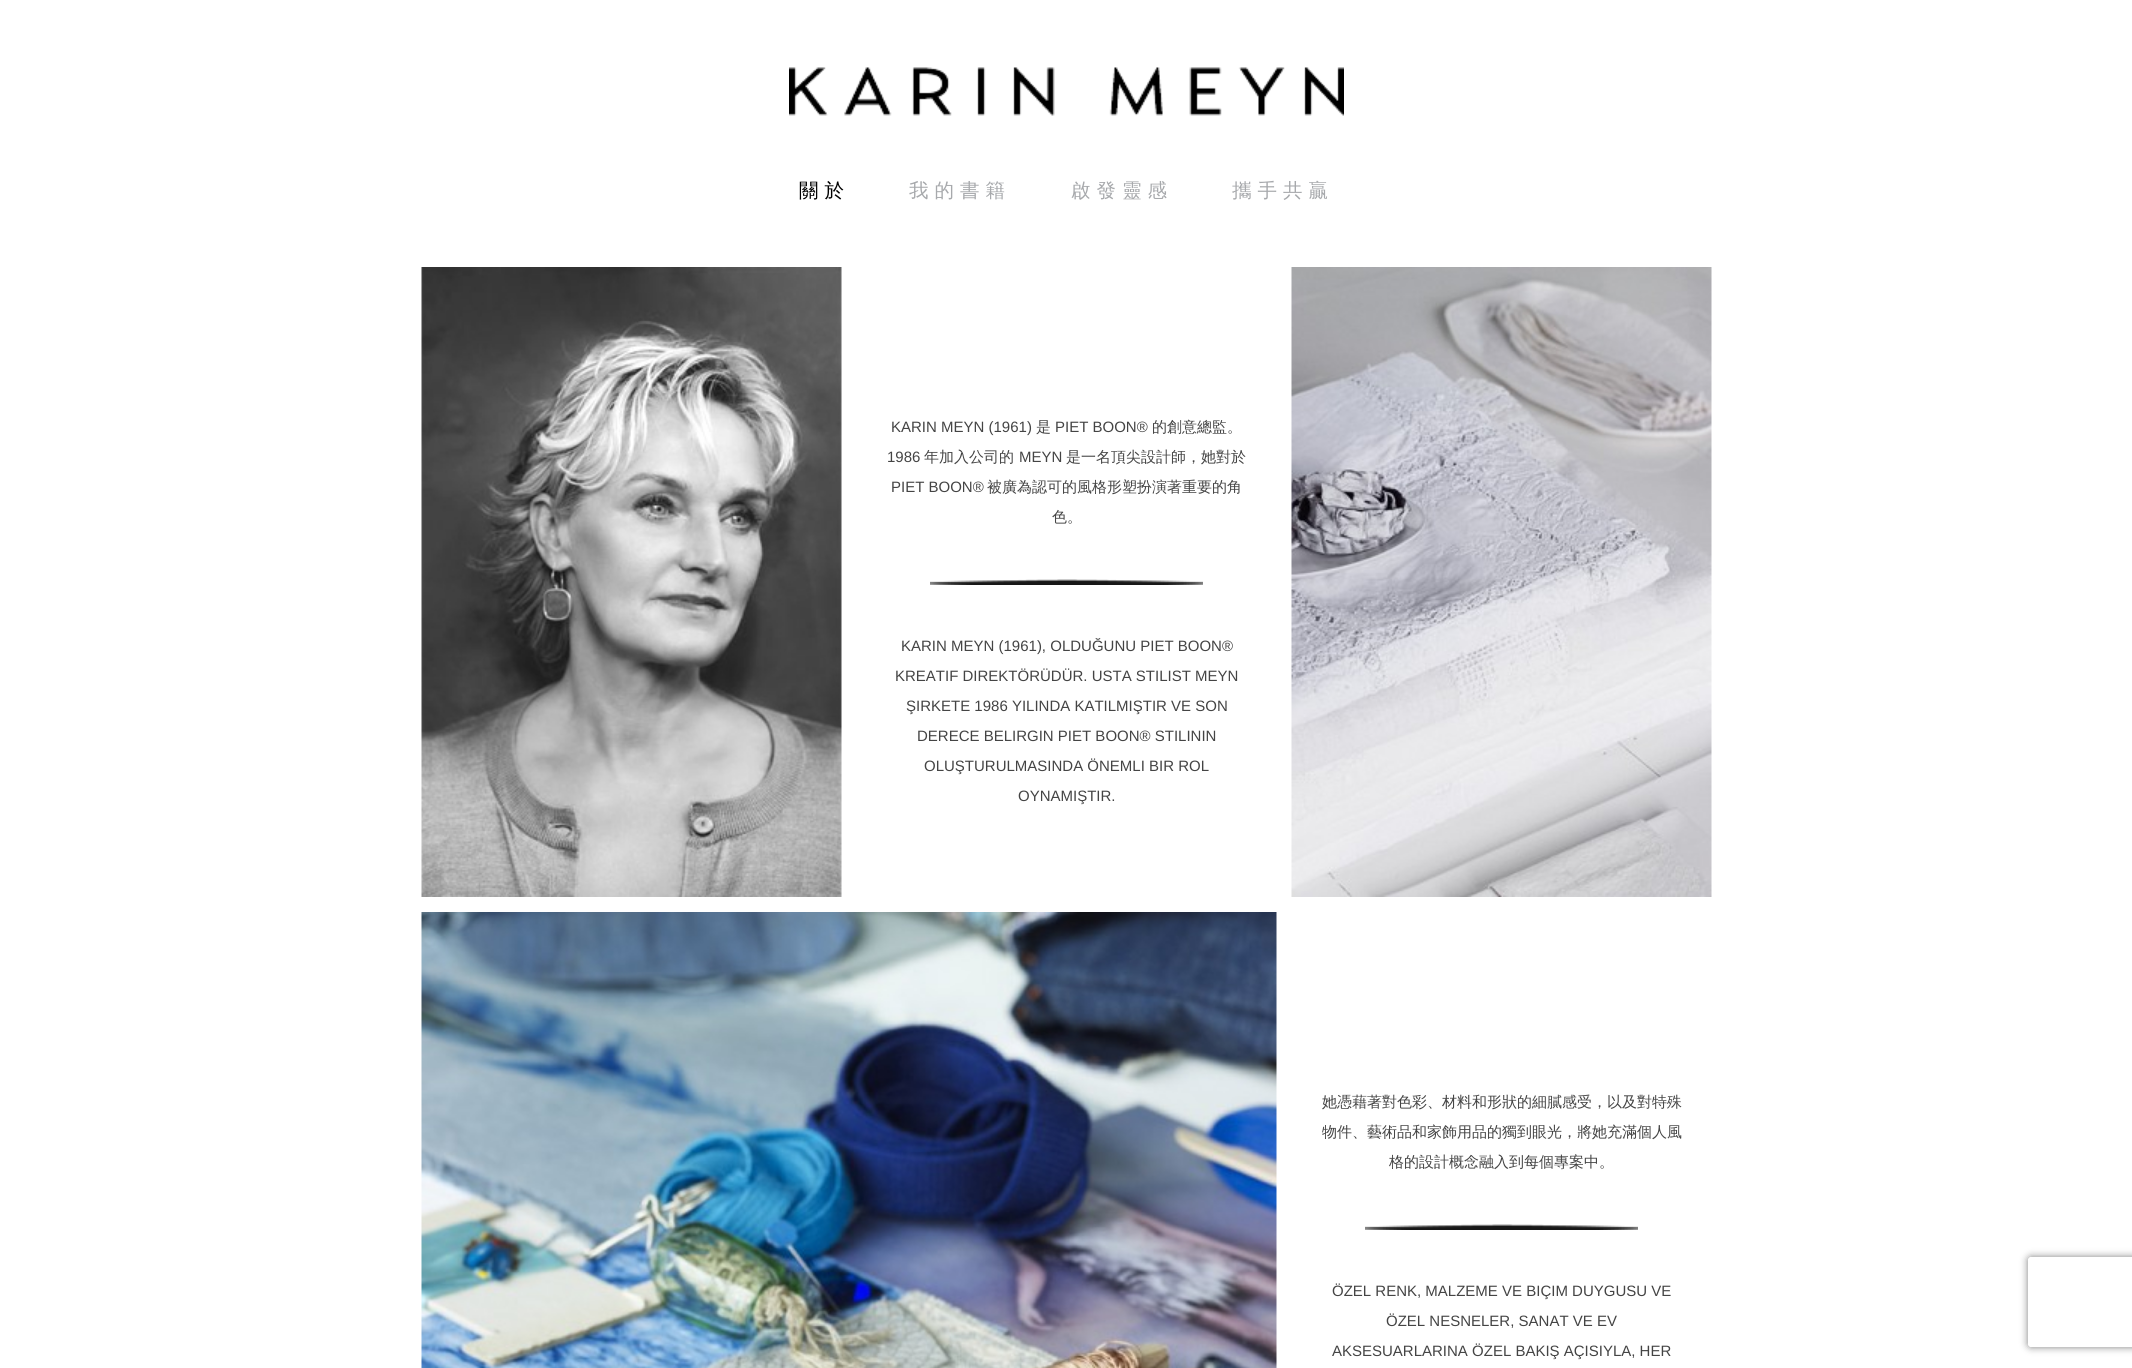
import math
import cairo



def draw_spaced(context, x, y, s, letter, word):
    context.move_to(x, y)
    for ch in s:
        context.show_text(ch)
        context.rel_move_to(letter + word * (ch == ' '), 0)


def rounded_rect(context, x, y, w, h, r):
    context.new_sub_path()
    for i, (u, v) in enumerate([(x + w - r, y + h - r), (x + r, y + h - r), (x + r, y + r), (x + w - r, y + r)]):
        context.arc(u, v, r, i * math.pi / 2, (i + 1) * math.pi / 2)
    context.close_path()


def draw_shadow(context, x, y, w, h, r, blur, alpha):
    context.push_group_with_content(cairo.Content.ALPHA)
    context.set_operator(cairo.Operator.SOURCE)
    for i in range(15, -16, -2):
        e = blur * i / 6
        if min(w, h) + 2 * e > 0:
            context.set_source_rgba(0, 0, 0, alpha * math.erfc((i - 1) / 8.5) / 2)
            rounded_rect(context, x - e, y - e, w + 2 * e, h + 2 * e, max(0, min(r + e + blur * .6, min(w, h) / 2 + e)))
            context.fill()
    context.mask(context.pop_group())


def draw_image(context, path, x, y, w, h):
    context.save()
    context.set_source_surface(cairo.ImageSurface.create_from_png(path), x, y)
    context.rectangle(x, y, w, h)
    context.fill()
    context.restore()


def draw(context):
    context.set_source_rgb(1, 1, 1)
    context.paint()
    draw_image(context, "images/1.png", 789, 67, 555, 49)
    draw_image(context, "images/2.png", 421, 267, 421, 630)
    draw_image(context, "images/3.png", 930, 579, 273, 6)
    draw_image(context, "images/4.png", 1291, 267, 421, 630)
    draw_image(context, "images/5.png", 421, 912, 856, 456)
    draw_image(context, "images/6.png", 1365, 1224, 273, 6)
    context.save()
    context.set_fill_rule(cairo.FillRule.EVEN_ODD)
    context.new_path()
    context.move_to(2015, 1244)
    context.line_to(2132, 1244)
    context.line_to(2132, 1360)
    context.line_to(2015, 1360)
    context.close_path()
    context.move_to(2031, 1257)
    context.line_to(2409, 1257)
    context.curve_to(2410.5, 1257, 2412, 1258.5, 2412, 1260)
    context.line_to(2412, 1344)
    context.curve_to(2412, 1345.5, 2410.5, 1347, 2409, 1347)
    context.line_to(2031, 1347)
    context.curve_to(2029.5, 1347, 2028, 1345.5, 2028, 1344)
    context.line_to(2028, 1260)
    context.curve_to(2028, 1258.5, 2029.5, 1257, 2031, 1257)
    context.close_path()
    context.clip()
    context.set_source_rgb(128 / 255, 128 / 255, 128 / 255)
    draw_shadow(context, 2028, 1257, 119, 90, 3, 4, 1)
    context.restore()
    context.select_font_face("WenQuanYi Zen Hei Medium")
    context.set_font_size(19.5)
    context.set_source_rgb(0, 0, 0)
    draw_spaced(context, 799, 197, "關於", 6, 0)
    context.set_source_rgb(167 / 255, 169 / 255, 172 / 255)
    draw_spaced(context, 909, 197, "我的書籍", 6, 0)
    draw_spaced(context, 1071, 197, "啟發靈感", 6, 0)
    draw_spaced(context, 1232, 197, "攜手共贏", 6, 0)
    context.select_font_face("Liberation Sans")
    context.set_font_size(15)
    context.set_source_rgb(68 / 255, 68 / 255, 68 / 255)
    context.move_to(891, 432)
    context.show_text("KARIN MEYN (1961)")
    context.select_font_face("WenQuanYi Zen Hei Medium")
    context.move_to(1036, 432)
    context.show_text("是")
    context.select_font_face("Liberation Sans")
    context.move_to(1055, 432)
    context.show_text("PIET BOON®")
    context.select_font_face("WenQuanYi Zen Hei Medium")
    context.move_to(1152, 432)
    context.show_text("的創意總監。")
    context.select_font_face("Liberation Sans")
    context.move_to(887, 462)
    context.show_text("1986")
    context.select_font_face("WenQuanYi Zen Hei Medium")
    context.move_to(924, 462)
    context.show_text("年加入公司的")
    context.select_font_face("Liberation Sans")
    context.move_to(1019, 462)
    context.show_text("MEYN")
    context.select_font_face("WenQuanYi Zen Hei Medium")
    context.move_to(1066, 462)
    context.show_text("是一名頂尖設計師，她對於")
    context.select_font_face("Liberation Sans")
    context.move_to(891, 492)
    context.show_text("PIET BOON®")
    context.select_font_face("WenQuanYi Zen Hei Medium")
    context.move_to(987, 492)
    context.show_text("被廣為認可的風格形塑扮演著重要的角")
    context.move_to(1052, 522)
    context.show_text("色。")
    context.select_font_face("Liberation Sans")
    context.move_to(901, 651)
    context.show_text("KARIN MEYN (1961), OLDUĞUNU PIET BOON®")
    context.move_to(895, 681)
    context.show_text("KREATIF DIREKTÖRÜDÜR. USTA STILIST MEYN")
    context.move_to(906, 711)
    context.show_text("ŞIRKETE 1986 YILINDA KATILMIŞTIR VE SON")
    context.move_to(917, 741)
    context.show_text("DERECE BELIRGIN PIET BOON® STILININ")
    context.move_to(924, 771)
    context.show_text("OLUŞTURULMASINDA ÖNEMLI BIR ROL")
    context.move_to(1018, 801)
    context.show_text("OYNAMIŞTIR.")
    context.select_font_face("WenQuanYi Zen Hei Medium")
    context.move_to(1322, 1107)
    context.show_text("她憑藉著對色彩、材料和形狀的細膩感受，以及對特殊")
    context.move_to(1322, 1137)
    context.show_text("物件、藝術品和家飾用品的獨到眼光，將她充滿個人風")
    context.move_to(1389, 1167)
    context.show_text("格的設計概念融入到每個專案中。")
    context.select_font_face("Liberation Sans")
    context.move_to(1332, 1296)
    context.show_text("ÖZEL RENK, MALZEME VE BIÇIM DUYGUSU VE")
    context.move_to(1386, 1326)
    context.show_text("ÖZEL NESNELER, SANAT VE EV")
    context.move_to(1332, 1356)
    context.show_text("AKSESUARLARINA ÖZEL BAKIŞ AÇISIYLA, HER")


surface = cairo.ImageSurface(cairo.Format.RGB24, 2132, 1368)
context = cairo.Context(surface)
options = cairo.FontOptions()
options.set_hint_metrics(cairo.HintMetrics.OFF)
options.set_hint_style(cairo.HintStyle.NONE)
context.set_font_options(options)
context.set_miter_limit(4)
draw(context)
surface.write_to_png("out.png")
